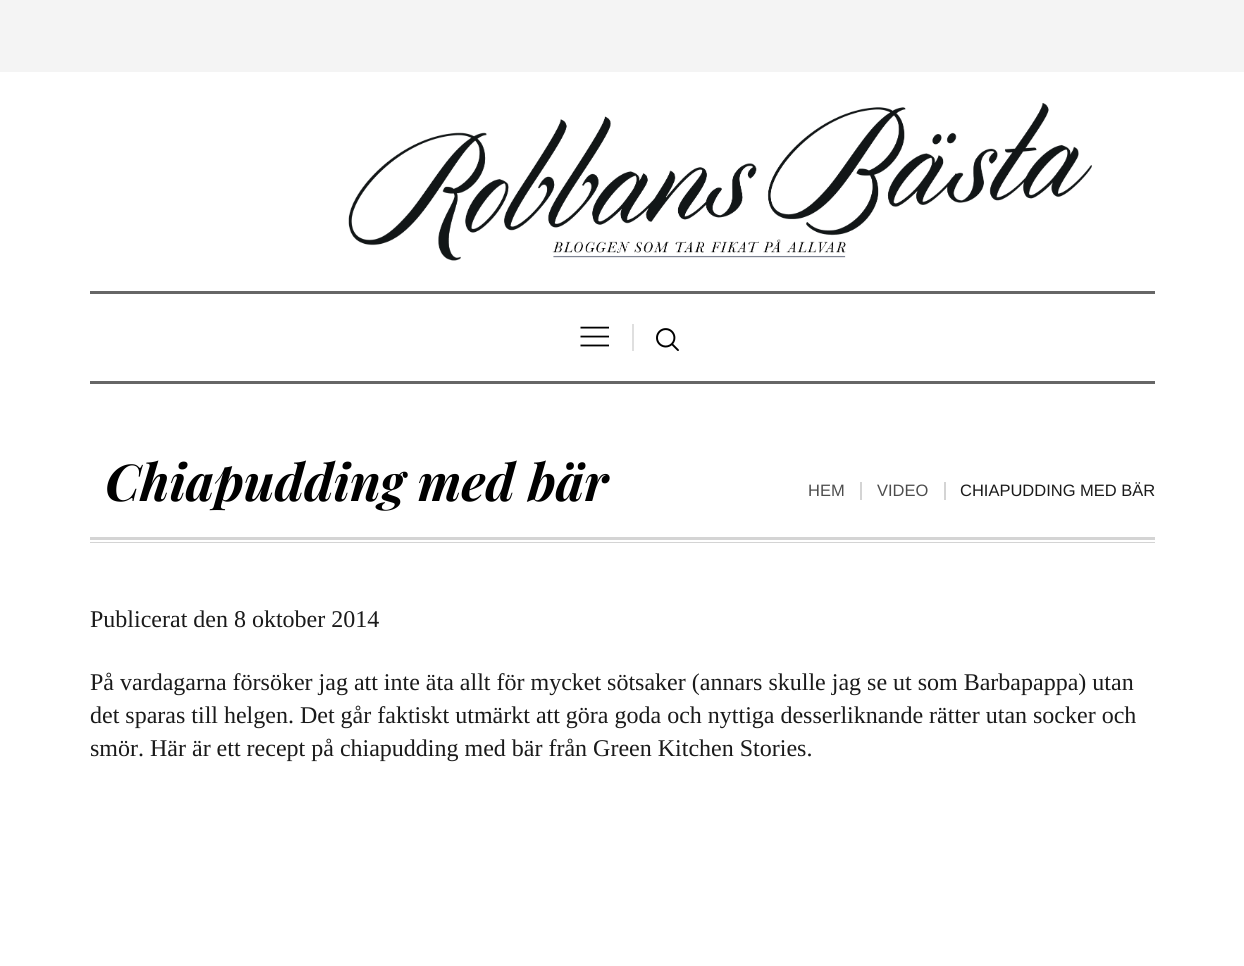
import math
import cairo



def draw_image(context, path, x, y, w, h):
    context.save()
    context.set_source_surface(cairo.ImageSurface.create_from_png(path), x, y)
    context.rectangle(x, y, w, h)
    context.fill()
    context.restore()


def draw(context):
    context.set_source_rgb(1, 1, 1)
    context.paint()
    context.set_source_rgb(244 / 255, 244 / 255, 244 / 255)
    context.rectangle(0, 0, 1244, 72)
    context.fill()
    draw_image(context, "images/1.png", 348, 103, 744, 158)
    context.set_source_rgb(102 / 255, 102 / 255, 102 / 255)
    context.rectangle(90, 291, 1065, 3)
    context.fill()
    context.rectangle(90, 381, 1065, 3)
    context.fill()
    draw_image(context, "images/2.png", 580, 326, 29, 21)
    context.set_source_rgb(223 / 255, 223 / 255, 223 / 255)
    context.rectangle(632, 324, 2, 27)
    context.fill()
    draw_image(context, "images/3.png", 656, 328, 23, 23)
    context.set_source_rgb(212 / 255, 212 / 255, 212 / 255)
    context.rectangle(90, 537, 1065, 3)
    context.fill()
    context.rectangle(90, 542, 1065, 1)
    context.fill()
    context.rectangle(860, 482, 2, 18)
    context.fill()
    context.rectangle(944, 482, 2, 18)
    context.fill()
    context.select_font_face("Playfair Display", cairo.FontSlant.ITALIC, cairo.FontWeight.BOLD)
    context.set_font_size(51)
    context.set_source_rgb(0, 0, 0)
    context.move_to(105, 501)
    context.show_text("Chiapudding med bär")
    context.select_font_face("Liberation Sans")
    context.set_font_size(16.5)
    context.set_source_rgb(77 / 255, 77 / 255, 77 / 255)
    context.move_to(808, 496)
    context.show_text("HEM")
    context.move_to(877, 496)
    context.show_text("VIDEO")
    context.set_source_rgb(26 / 255, 26 / 255, 26 / 255)
    context.move_to(960, 496)
    context.show_text("CHIAPUDDING MED BÄR")
    context.select_font_face("Liberation Serif")
    context.set_font_size(24)
    context.move_to(90, 627)
    context.show_text("Publicerat den 8 oktober 2014")
    context.move_to(90, 690)
    context.show_text("På vardagarna försöker jag att inte äta allt för mycket sötsaker (annars skulle jag se ut som Barbapappa) utan")
    context.move_to(90, 723)
    context.show_text("det sparas till helgen. Det går faktiskt utmärkt att göra goda och nyttiga desserliknande rätter utan socker och")
    context.move_to(90, 756)
    context.show_text("smör. Här är ett recept på chiapudding med bär från Green Kitchen Stories.")


surface = cairo.ImageSurface(cairo.Format.RGB24, 1244, 966)
context = cairo.Context(surface)
options = cairo.FontOptions()
options.set_hint_metrics(cairo.HintMetrics.OFF)
options.set_hint_style(cairo.HintStyle.NONE)
context.set_font_options(options)
context.set_miter_limit(4)
draw(context)
surface.write_to_png("out.png")
